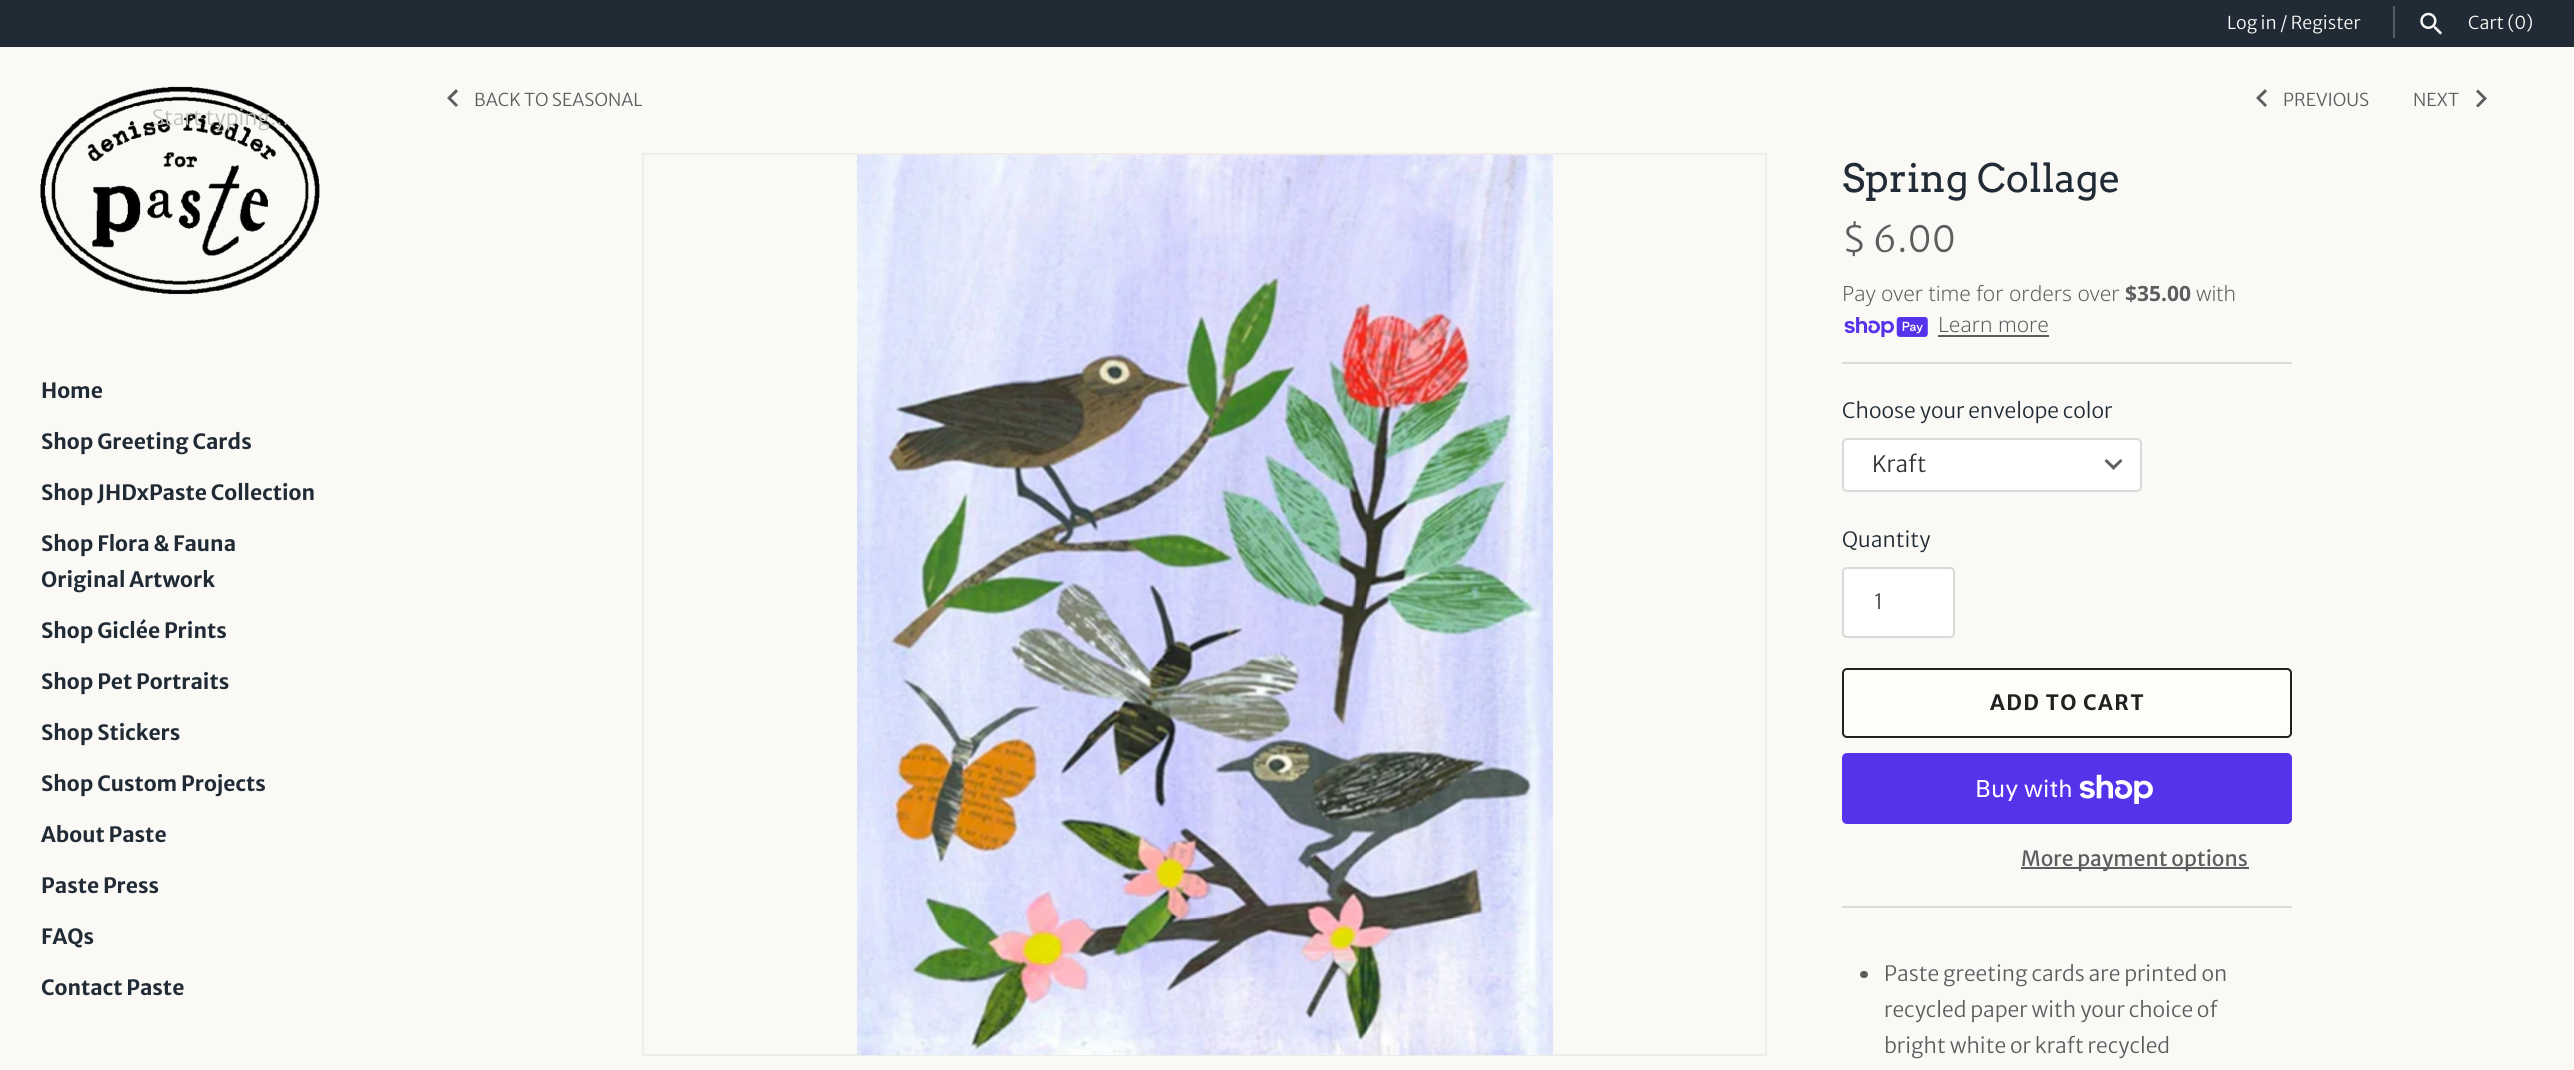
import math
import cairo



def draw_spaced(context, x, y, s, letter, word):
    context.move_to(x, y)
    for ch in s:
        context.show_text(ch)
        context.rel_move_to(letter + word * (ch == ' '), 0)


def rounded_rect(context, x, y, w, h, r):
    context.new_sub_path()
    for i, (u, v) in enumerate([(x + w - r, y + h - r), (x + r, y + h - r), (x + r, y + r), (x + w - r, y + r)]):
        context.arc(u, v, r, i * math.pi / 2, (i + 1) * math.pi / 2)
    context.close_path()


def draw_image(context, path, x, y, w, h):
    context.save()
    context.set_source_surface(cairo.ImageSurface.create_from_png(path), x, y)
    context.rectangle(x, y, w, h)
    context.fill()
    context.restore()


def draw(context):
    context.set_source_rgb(250 / 255, 249 / 255, 245 / 255)
    context.paint()
    context.set_source_rgb(33 / 255, 43 / 255, 54 / 255)
    context.rectangle(0, 0, 2574, 47)
    context.fill()
    context.set_source_rgb(87 / 255, 95 / 255, 102 / 255)
    context.rectangle(2393, 6, 2, 32)
    context.fill()
    draw_image(context, "images/1.png", 2420, 12, 22, 23)
    draw_image(context, "images/2.png", 40, 86, 280, 209)
    context.set_source_rgb(93 / 255, 93 / 255, 96 / 255)
    context.new_path()
    context.move_to(458, 105)
    context.line_to(451, 98)
    context.line_to(458, 91.5)
    context.line_to(456, 89)
    context.line_to(447, 98)
    context.line_to(456, 107)
    context.close_path()
    context.fill()
    context.new_path()
    context.move_to(2267, 105)
    context.line_to(2260, 98)
    context.line_to(2267, 91.5)
    context.line_to(2265, 89)
    context.line_to(2256, 98)
    context.line_to(2265, 107)
    context.close_path()
    context.fill()
    context.new_path()
    context.move_to(2476, 105.5)
    context.line_to(2483, 98.5)
    context.line_to(2476, 91.5)
    context.line_to(2478, 89.5)
    context.line_to(2487, 98.5)
    context.line_to(2478, 107.5)
    context.close_path()
    context.fill()
    context.rectangle(643, 154, 1123, 901)
    context.set_source_rgb(238 / 255, 237 / 255, 233 / 255)
    context.stroke()
    draw_image(context, "images/3.png", 857, 155, 696, 900)
    draw_image(context, "images/4.png", 1844, 317, 84, 21)
    context.set_source_rgb(93 / 255, 93 / 255, 96 / 255)
    context.rectangle(1938, 335, 111, 2)
    context.fill()
    context.set_source_rgb(219 / 255, 218 / 255, 215 / 255)
    context.rectangle(1842, 362, 450, 2)
    context.fill()
    context.set_source_rgb(1, 1, 1)
    rounded_rect(context, 1842, 438, 300, 54, 5)
    context.fill()
    context.set_source_rgb(97 / 255, 97 / 255, 97 / 255)
    context.new_path()
    context.move_to(2106.5, 459)
    context.line_to(2113.5, 465.5)
    context.line_to(2120.5, 459)
    context.line_to(2122.5, 461)
    context.line_to(2113.5, 470)
    context.line_to(2104.5, 461)
    context.close_path()
    context.fill()
    rounded_rect(context, 1843, 439, 298, 52, 4)
    context.set_source_rgba(0, 0, 0, 0.15)
    context.stroke()
    context.set_source_rgb(1, 1, 1)
    rounded_rect(context, 1842, 567, 113, 71, 5)
    context.fill()
    rounded_rect(context, 1843, 568, 111, 69, 4)
    context.set_source_rgba(0, 0, 0, 0.15)
    context.stroke()
    context.set_source_rgb(253 / 255, 253 / 255, 249 / 255)
    rounded_rect(context, 1843, 669, 448, 68, 4)
    context.fill_preserve()
    context.set_source_rgb(33 / 255, 33 / 255, 33 / 255)
    context.stroke()
    context.set_source_rgb(84 / 255, 51 / 255, 235 / 255)
    rounded_rect(context, 1842, 753, 450, 71, 5)
    context.fill()
    draw_image(context, "images/5.png", 2079, 774, 74, 30)
    context.set_source_rgb(93 / 255, 93 / 255, 96 / 255)
    context.rectangle(2021, 867, 228, 2)
    context.fill()
    context.set_source_rgb(219 / 255, 218 / 255, 215 / 255)
    context.rectangle(1842, 906, 450, 2)
    context.fill()
    context.set_source_rgb(93 / 255, 93 / 255, 96 / 255)
    rounded_rect(context, 1860, 971, 8, 7, 3.5)
    context.fill()
    context.select_font_face("Merriweather Sans Light")
    context.set_font_size(17.75)
    context.set_source_rgb(250 / 255, 249 / 255, 245 / 255)
    context.move_to(2227, 29)
    context.show_text("Log in / Register")
    context.move_to(2468, 29)
    context.show_text("Cart (0)")
    context.set_font_size(21)
    context.set_source_rgb(192 / 255, 191 / 255, 188 / 255)
    context.move_to(152, 125)
    context.show_text("Start typing...")
    context.select_font_face("Merriweather Sans", cairo.FontSlant.NORMAL, cairo.FontWeight.BOLD)
    context.set_source_rgb(33 / 255, 43 / 255, 54 / 255)
    context.move_to(41, 398)
    context.show_text("Home")
    context.move_to(41, 449)
    context.show_text("Shop Greeting Cards")
    context.move_to(41, 500)
    context.show_text("Shop JHDxPaste Collection")
    context.move_to(41, 551)
    context.show_text("Shop Flora & Fauna")
    context.move_to(41, 587)
    context.show_text("Original Artwork")
    context.move_to(41, 638)
    context.show_text("Shop Giclée Prints")
    context.move_to(41, 689)
    context.show_text("Shop Pet Portraits")
    context.move_to(41, 740)
    context.show_text("Shop Stickers")
    context.move_to(41, 791)
    context.show_text("Shop Custom Projects")
    context.move_to(41, 842)
    context.show_text("About Paste")
    context.move_to(41, 893)
    context.show_text("Paste Press")
    context.move_to(41, 944)
    context.show_text("FAQs")
    context.move_to(41, 995)
    context.show_text("Contact Paste")
    context.select_font_face("Merriweather Sans Light")
    context.set_font_size(17.75)
    context.set_source_rgb(93 / 255, 93 / 255, 96 / 255)
    context.move_to(474, 106)
    context.show_text("BACK TO SEASONAL")
    context.move_to(2283, 106)
    context.show_text("PREVIOUS")
    context.move_to(2413, 106)
    context.show_text("NEXT")
    context.select_font_face("Arvo")
    context.set_font_size(39)
    context.set_source_rgb(33 / 255, 43 / 255, 54 / 255)
    context.move_to(1842, 192)
    context.show_text("Spring Collage")
    context.select_font_face("Merriweather Sans Light")
    context.set_font_size(36)
    context.set_source_rgb(93 / 255, 93 / 255, 96 / 255)
    context.move_to(1842, 252)
    context.show_text("$ 6.00")
    context.select_font_face("Noto Sans Light")
    context.set_font_size(21)
    context.move_to(1842, 301)
    context.show_text("Pay over time for orders over")
    context.select_font_face("Noto Sans", cairo.FontSlant.NORMAL, cairo.FontWeight.BOLD)
    context.move_to(2125, 301)
    context.show_text("$35.00")
    context.select_font_face("Noto Sans Light")
    context.move_to(2196, 301)
    context.show_text("with")
    context.move_to(1938, 332)
    context.show_text("Learn more")
    context.select_font_face("Merriweather Sans Light")
    context.set_source_rgb(33 / 255, 43 / 255, 54 / 255)
    context.move_to(1842, 418)
    context.show_text("Choose your envelope color")
    context.set_font_size(22.5)
    context.set_source_rgb(51 / 255, 51 / 255, 51 / 255)
    context.move_to(1872, 472)
    context.show_text("Kraft")
    context.set_font_size(21)
    context.set_source_rgb(33 / 255, 43 / 255, 54 / 255)
    context.move_to(1842, 547)
    context.show_text("Quantity")
    context.set_source_rgb(68 / 255, 68 / 255, 68 / 255)
    context.move_to(1874, 609)
    context.show_text("1")
    context.select_font_face("Merriweather Sans", cairo.FontSlant.NORMAL, cairo.FontWeight.BOLD)
    context.set_source_rgb(33 / 255, 33 / 255, 33 / 255)
    draw_spaced(context, 1990, 710, "ADD TO CART", 1.5, 0)
    context.select_font_face("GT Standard")
    context.set_font_size(24)
    context.set_source_rgb(1, 1, 1)
    context.move_to(1975, 797)
    context.show_text("Buy with")
    context.select_font_face("Merriweather Sans")
    context.set_font_size(21)
    context.set_source_rgb(93 / 255, 93 / 255, 96 / 255)
    context.move_to(2021, 866)
    context.show_text("More payment options")
    context.select_font_face("Merriweather Sans Light")
    context.move_to(1884, 981)
    context.show_text("Paste greeting cards are printed on")
    context.move_to(1884, 1017)
    context.show_text("recycled paper with your choice of")
    context.move_to(1884, 1053)
    context.show_text("bright white or kraft recycled")


surface = cairo.ImageSurface(cairo.Format.RGB24, 2574, 1070)
context = cairo.Context(surface)
options = cairo.FontOptions()
options.set_hint_metrics(cairo.HintMetrics.OFF)
options.set_hint_style(cairo.HintStyle.NONE)
context.set_font_options(options)
context.set_miter_limit(4)
draw(context)
surface.write_to_png("out.png")
